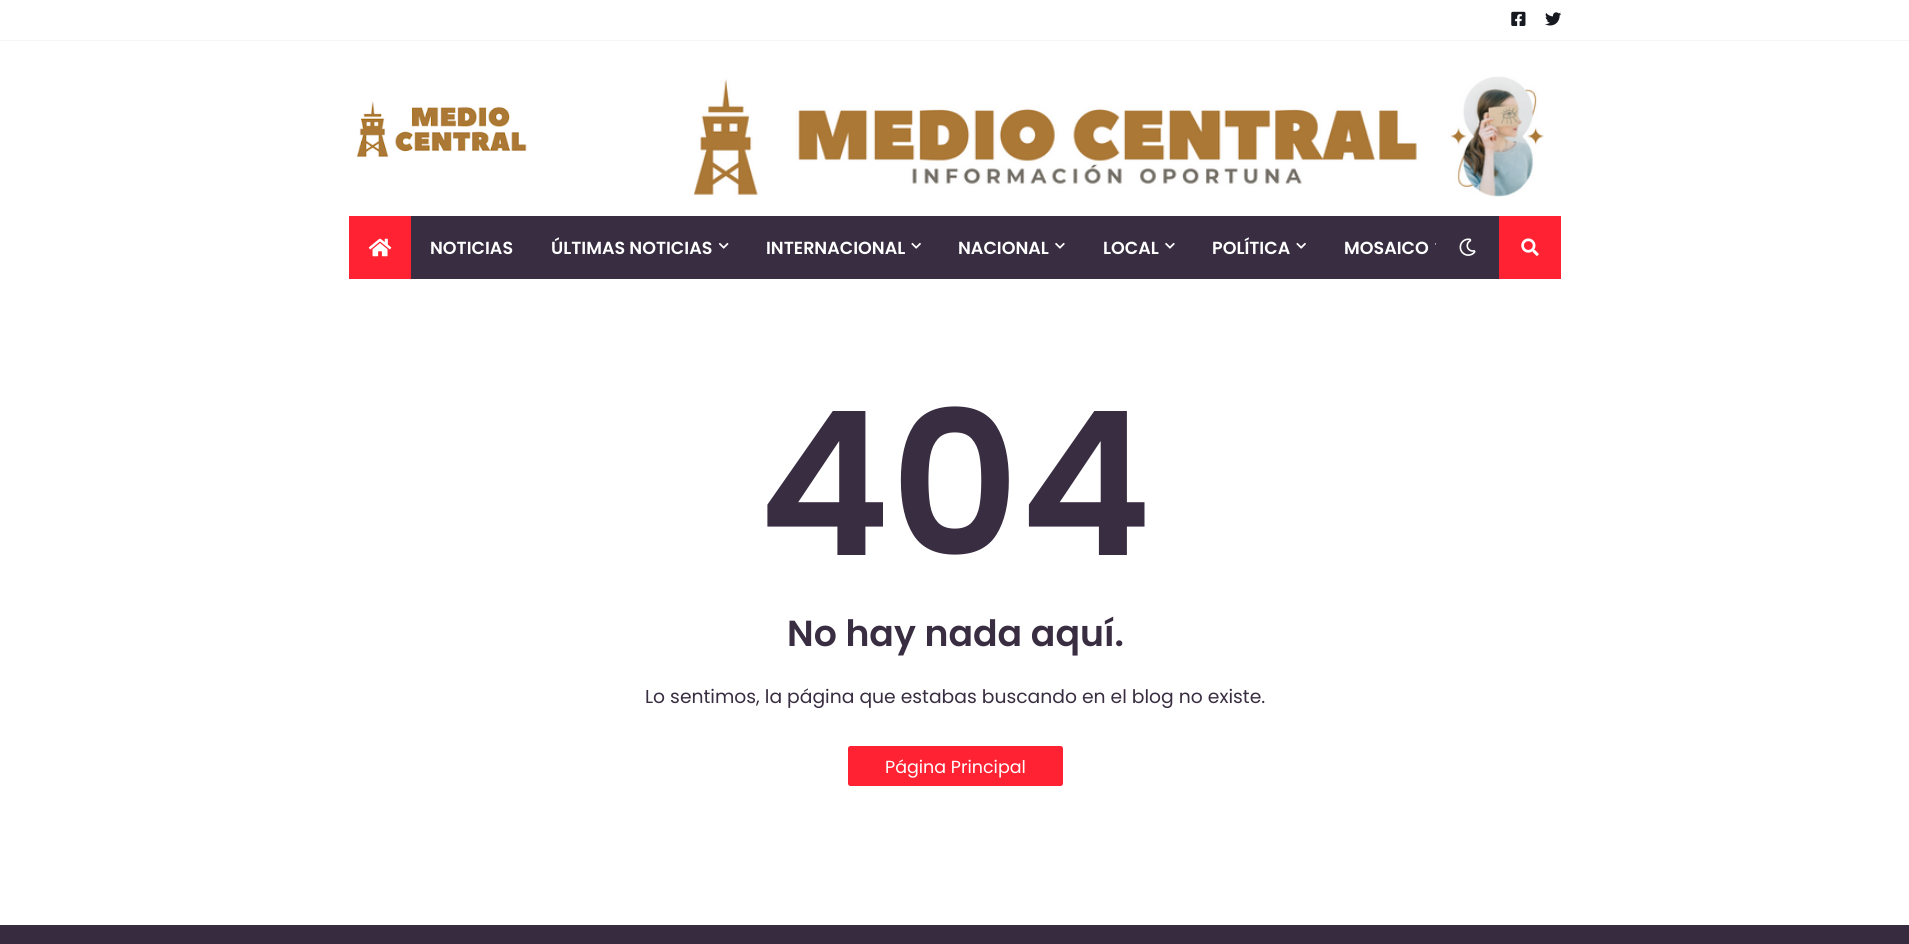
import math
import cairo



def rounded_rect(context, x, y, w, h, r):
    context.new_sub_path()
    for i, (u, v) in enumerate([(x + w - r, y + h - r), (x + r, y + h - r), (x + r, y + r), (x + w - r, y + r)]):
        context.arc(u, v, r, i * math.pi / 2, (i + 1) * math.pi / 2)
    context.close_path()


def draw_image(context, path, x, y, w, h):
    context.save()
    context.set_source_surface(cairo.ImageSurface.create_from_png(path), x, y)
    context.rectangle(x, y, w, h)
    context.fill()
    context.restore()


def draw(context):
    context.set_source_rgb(1, 1, 1)
    context.paint()
    context.set_source_rgb(245 / 255, 245 / 255, 245 / 255)
    context.rectangle(0, 40, 1909, 1)
    context.fill()
    draw_image(context, "images/1.png", 1511, 11, 15, 15)
    draw_image(context, "images/2.png", 1545, 12, 16, 14)
    draw_image(context, "images/3.png", 356, 101, 171, 56)
    draw_image(context, "images/4.png", 693, 76, 851, 121)
    context.set_source_rgb(57 / 255, 45 / 255, 65 / 255)
    context.rectangle(411, 216, 1088, 63)
    context.fill()
    context.set_source_rgb(1, 34 / 255, 50 / 255)
    context.rectangle(349, 216, 62, 63)
    context.fill()
    draw_image(context, "images/5.png", 368, 238, 24, 19)
    draw_image(context, "images/6.png", 718, 242, 11, 7)
    draw_image(context, "images/7.png", 911, 242, 10, 7)
    draw_image(context, "images/8.png", 1055, 242, 10, 7)
    draw_image(context, "images/8.png", 1165, 242, 10, 7)
    draw_image(context, "images/7.png", 1296, 242, 10, 7)
    draw_image(context, "images/9.png", 1435, 243, 1, 2)
    draw_image(context, "images/10.png", 1459, 238, 17, 18)
    context.rectangle(1499, 216, 62, 63)
    context.fill()
    draw_image(context, "images/11.png", 1521, 238, 18, 18)
    rounded_rect(context, 848, 746, 215, 40, 2.5)
    context.fill()
    context.set_source_rgb(55 / 255, 44 / 255, 63 / 255)
    context.rectangle(0, 925, 1909, 19)
    context.fill()
    context.select_font_face("Poppins SemiBold")
    context.set_font_size(17.5)
    context.set_source_rgb(1, 1, 1)
    context.move_to(430, 254)
    context.show_text("NOTICIAS")
    context.move_to(551, 254)
    context.show_text("ÚLTIMAS NOTICIAS")
    context.move_to(766, 254)
    context.show_text("INTERNACIONAL")
    context.move_to(958, 254)
    context.show_text("NACIONAL")
    context.move_to(1103, 254)
    context.show_text("LOCAL")
    context.move_to(1212, 254)
    context.show_text("POLÍTICA")
    context.move_to(1344, 254)
    context.show_text("MOSAICO")
    context.set_font_size(200)
    context.set_source_rgb(57 / 255, 45 / 255, 65 / 255)
    context.move_to(758, 555)
    context.show_text("404")
    context.set_font_size(36.25)
    context.move_to(787, 646)
    context.show_text("No hay nada aquí.")
    context.select_font_face("Poppins")
    context.set_font_size(18.75)
    context.move_to(645, 703)
    context.show_text("Lo sentimos, la página que estabas buscando en el blog no existe.")
    context.set_font_size(17.5)
    context.set_source_rgb(1, 1, 1)
    context.move_to(885, 773)
    context.show_text("Página Principal")


surface = cairo.ImageSurface(cairo.Format.RGB24, 1909, 944)
context = cairo.Context(surface)
options = cairo.FontOptions()
options.set_hint_metrics(cairo.HintMetrics.OFF)
options.set_hint_style(cairo.HintStyle.NONE)
context.set_font_options(options)
context.set_miter_limit(4)
draw(context)
surface.write_to_png("out.png")
